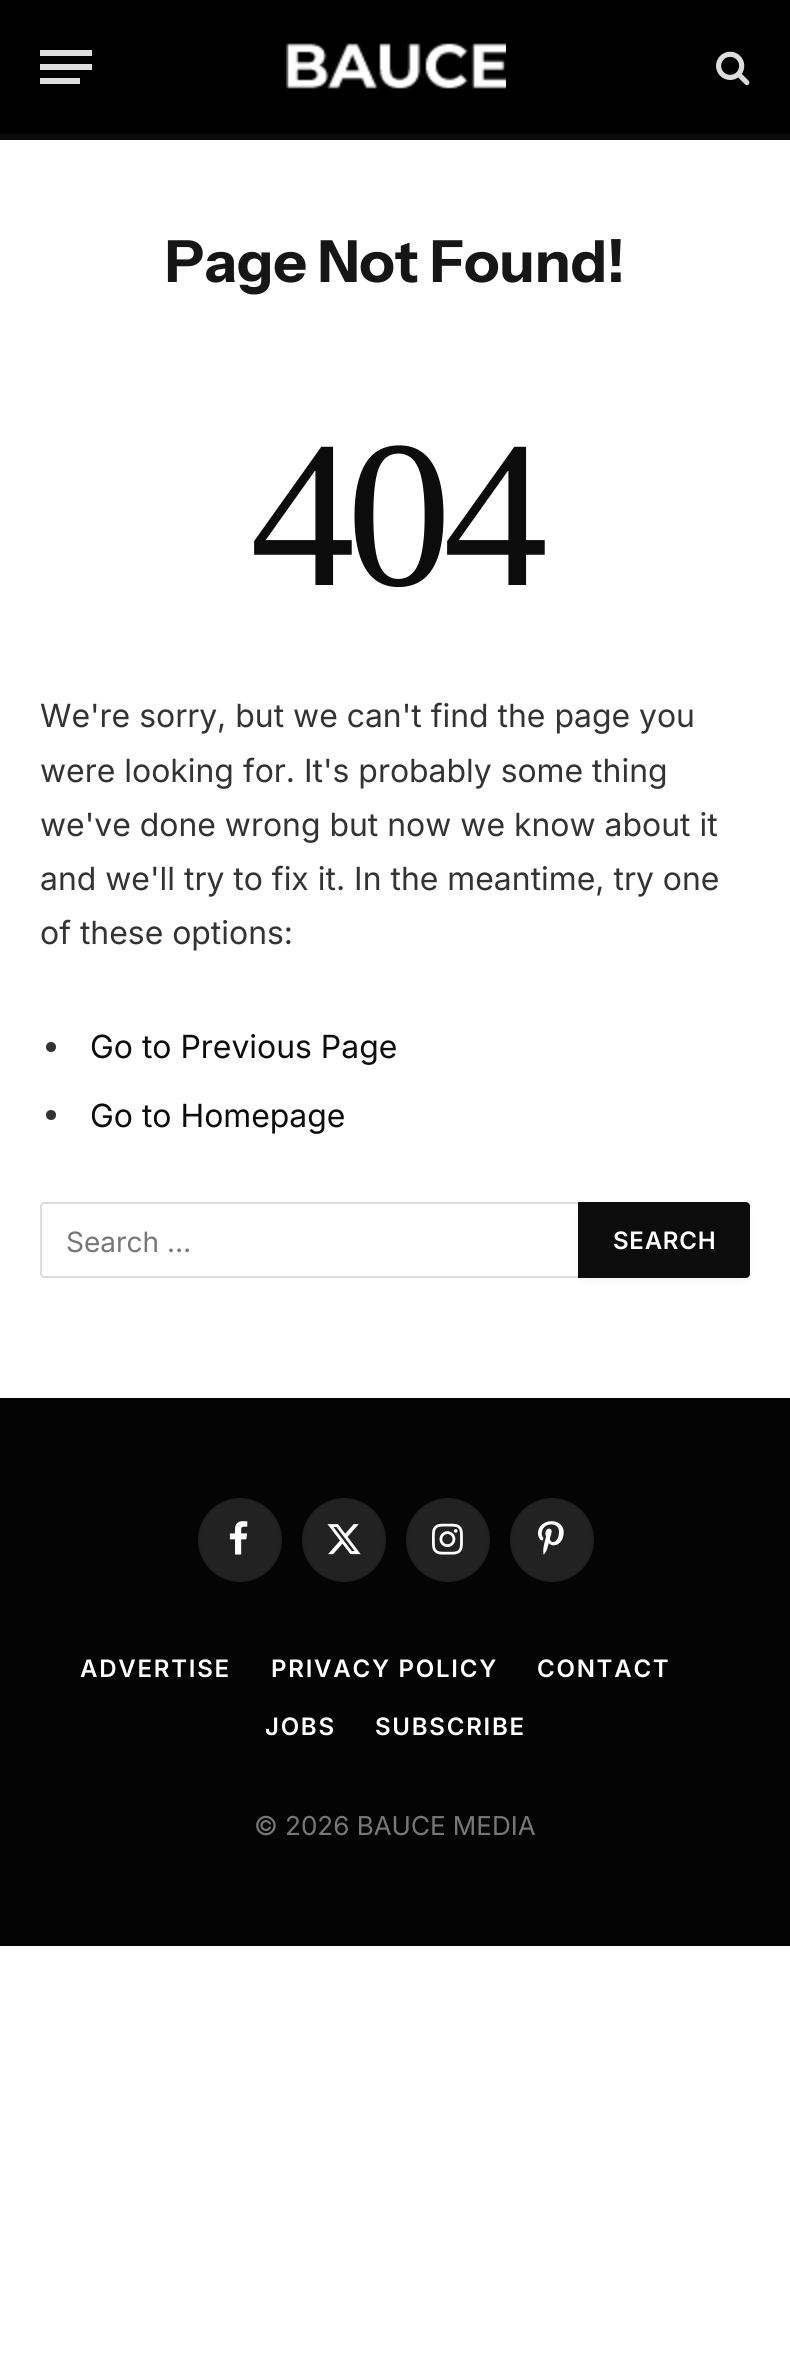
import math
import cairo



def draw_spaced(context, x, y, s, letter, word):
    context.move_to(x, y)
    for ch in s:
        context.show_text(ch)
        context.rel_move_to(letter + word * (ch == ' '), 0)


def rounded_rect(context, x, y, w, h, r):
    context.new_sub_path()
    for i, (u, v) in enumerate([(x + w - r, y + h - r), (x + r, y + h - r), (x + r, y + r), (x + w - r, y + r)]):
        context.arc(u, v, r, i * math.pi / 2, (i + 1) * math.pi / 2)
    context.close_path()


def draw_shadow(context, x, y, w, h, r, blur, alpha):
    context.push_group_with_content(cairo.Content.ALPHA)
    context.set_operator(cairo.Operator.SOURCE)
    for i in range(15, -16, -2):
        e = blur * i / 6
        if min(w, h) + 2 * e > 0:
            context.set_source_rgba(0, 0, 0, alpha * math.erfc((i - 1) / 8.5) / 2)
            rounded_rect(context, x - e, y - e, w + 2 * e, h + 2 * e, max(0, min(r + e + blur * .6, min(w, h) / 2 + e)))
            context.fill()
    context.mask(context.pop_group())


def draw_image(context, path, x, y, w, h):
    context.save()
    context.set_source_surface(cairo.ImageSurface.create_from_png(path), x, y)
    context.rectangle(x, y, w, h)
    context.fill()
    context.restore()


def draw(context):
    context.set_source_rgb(1, 1, 1)
    context.paint()
    context.set_source_rgb(0, 0, 0)
    context.rectangle(0, 0, 790, 134)
    context.fill()
    context.set_source_rgb(12 / 255, 12 / 255, 12 / 255)
    context.rectangle(0, 134, 790, 6)
    context.fill()
    context.set_source_rgb(221 / 255, 221 / 255, 221 / 255)
    context.rectangle(40, 78, 40, 6)
    context.fill()
    context.rectangle(40, 50, 52, 6)
    context.fill()
    context.rectangle(40, 64, 52, 6)
    context.fill()
    draw_image(context, "images/1.png", 286, 43, 220, 46)
    draw_image(context, "images/2.png", 716, 51, 34, 35)
    context.set_source_rgb(51 / 255, 51 / 255, 51 / 255)
    context.arc(51, 1047, 5, 0, 2 * math.pi)
    context.fill()
    context.arc(51, 1115, 5, 0, 2 * math.pi)
    context.fill()
    rounded_rect(context, 41, 1203, 540, 74, 3)
    context.set_source_rgb(221 / 255, 221 / 255, 221 / 255)
    context.stroke()
    context.set_source_rgb(0, 0, 0)
    draw_shadow(context, 586, 1214, 156, 60, 0, 7, 0.16)
    context.set_source_rgb(12 / 255, 12 / 255, 12 / 255)
    context.new_path()
    context.move_to(578, 1202)
    context.line_to(746, 1202)
    context.curve_to(748, 1202, 750, 1204, 750, 1206)
    context.line_to(750, 1274)
    context.curve_to(750, 1276, 748, 1278, 746, 1278)
    context.line_to(578, 1278)
    context.close_path()
    context.fill()
    context.set_source_rgb(4 / 255, 4 / 255, 4 / 255)
    context.rectangle(0, 1398, 790, 548)
    context.fill()
    context.set_source_rgb(34 / 255, 34 / 255, 34 / 255)
    context.arc(240, 1540, 42, 0, 2 * math.pi)
    context.fill()
    context.arc(240, 1540, 41, 0, 2 * math.pi)
    context.set_source_rgba(0, 0, 0, 0.09)
    context.stroke()
    draw_image(context, "images/3.png", 229, 1521, 19, 34)
    context.set_source_rgb(34 / 255, 34 / 255, 34 / 255)
    context.arc(344, 1540, 42, 0, 2 * math.pi)
    context.fill()
    context.arc(344, 1540, 41, 0, 2 * math.pi)
    context.set_source_rgba(0, 0, 0, 0.09)
    context.stroke()
    draw_image(context, "images/4.png", 327, 1524, 34, 31)
    context.set_source_rgb(34 / 255, 34 / 255, 34 / 255)
    context.arc(448, 1540, 42, 0, 2 * math.pi)
    context.fill()
    context.arc(448, 1540, 41, 0, 2 * math.pi)
    context.set_source_rgba(0, 0, 0, 0.09)
    context.stroke()
    draw_image(context, "images/5.png", 432, 1523, 31, 32)
    context.set_source_rgb(34 / 255, 34 / 255, 34 / 255)
    context.arc(552, 1540, 42, 0, 2 * math.pi)
    context.fill()
    context.arc(552, 1540, 41, 0, 2 * math.pi)
    context.set_source_rgba(0, 0, 0, 0.09)
    context.stroke()
    draw_image(context, "images/6.png", 538, 1521, 26, 34)
    context.select_font_face("Instrument Sans", cairo.FontSlant.NORMAL, cairo.FontWeight.BOLD)
    context.set_font_size(58)
    context.set_source_rgb(22 / 255, 22 / 255, 22 / 255)
    context.move_to(165, 282)
    context.show_text("Page Not Found!")
    context.select_font_face("Liberation Serif")
    context.set_font_size(210)
    context.set_source_rgb(12 / 255, 12 / 255, 12 / 255)
    draw_spaced(context, 250, 585, "404", -8.5, 0)
    context.select_font_face("Inter")
    context.set_font_size(31.9)
    context.set_source_rgb(51 / 255, 51 / 255, 51 / 255)
    context.move_to(40, 727)
    context.show_text("We're sorry, but we can't find the page you")
    context.move_to(40, 782)
    context.show_text("were looking for. It's probably some thing")
    context.move_to(40, 836)
    context.show_text("we've done wrong but now we know about it")
    context.move_to(40, 890)
    context.show_text("and we'll try to fix it. In the meantime, try one")
    context.move_to(40, 944)
    context.show_text("of these options:")
    context.set_source_rgb(12 / 255, 12 / 255, 12 / 255)
    context.move_to(90, 1058)
    context.show_text("Go to Previous Page")
    context.move_to(90, 1127)
    context.show_text("Go to Homepage")
    context.set_font_size(28)
    context.set_source_rgb(119 / 255, 119 / 255, 119 / 255)
    context.move_to(66, 1252)
    context.show_text("Search …")
    context.select_font_face("Inter SemiBold")
    context.set_font_size(24)
    context.set_source_rgb(1, 1, 1)
    draw_spaced(context, 613, 1249, "SEARCH", 0.75, 0)
    draw_spaced(context, 80, 1677, "ADVERTISE", 1.75, 0)
    draw_spaced(context, 271, 1677, "PRIVACY POLICY", 1.75, 0)
    draw_spaced(context, 537, 1677, "CONTACT", 1.75, 0)
    draw_spaced(context, 265, 1735, "JOBS", 1.75, 0)
    draw_spaced(context, 375, 1735, "SUBSCRIBE", 1.75, 0)
    context.select_font_face("Inter")
    context.set_font_size(26)
    context.set_source_rgb(119 / 255, 119 / 255, 119 / 255)
    context.move_to(254, 1835)
    context.show_text("© 2026 BAUCE MEDIA")


surface = cairo.ImageSurface(cairo.Format.RGB24, 790, 2373)
context = cairo.Context(surface)
options = cairo.FontOptions()
options.set_hint_metrics(cairo.HintMetrics.OFF)
options.set_hint_style(cairo.HintStyle.NONE)
context.set_font_options(options)
context.set_miter_limit(4)
draw(context)
surface.write_to_png("out.png")
